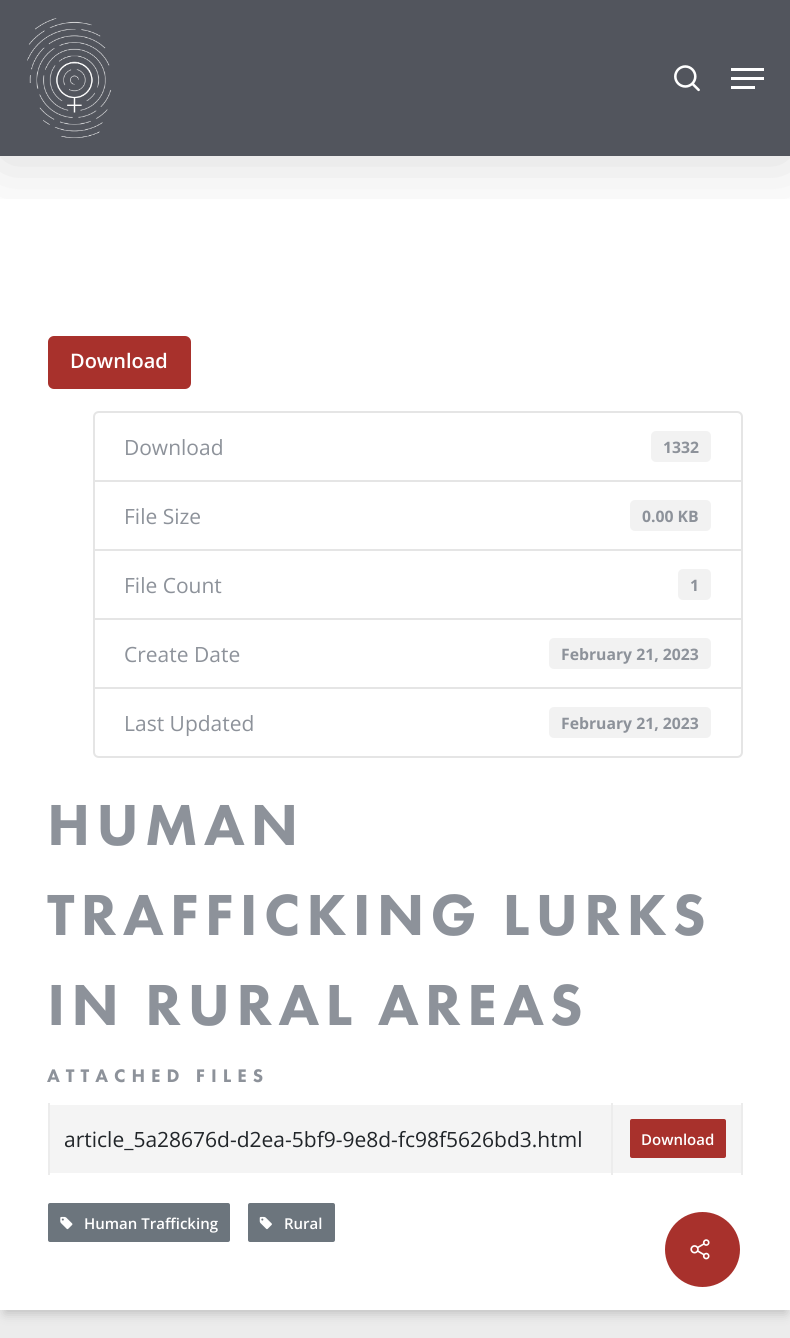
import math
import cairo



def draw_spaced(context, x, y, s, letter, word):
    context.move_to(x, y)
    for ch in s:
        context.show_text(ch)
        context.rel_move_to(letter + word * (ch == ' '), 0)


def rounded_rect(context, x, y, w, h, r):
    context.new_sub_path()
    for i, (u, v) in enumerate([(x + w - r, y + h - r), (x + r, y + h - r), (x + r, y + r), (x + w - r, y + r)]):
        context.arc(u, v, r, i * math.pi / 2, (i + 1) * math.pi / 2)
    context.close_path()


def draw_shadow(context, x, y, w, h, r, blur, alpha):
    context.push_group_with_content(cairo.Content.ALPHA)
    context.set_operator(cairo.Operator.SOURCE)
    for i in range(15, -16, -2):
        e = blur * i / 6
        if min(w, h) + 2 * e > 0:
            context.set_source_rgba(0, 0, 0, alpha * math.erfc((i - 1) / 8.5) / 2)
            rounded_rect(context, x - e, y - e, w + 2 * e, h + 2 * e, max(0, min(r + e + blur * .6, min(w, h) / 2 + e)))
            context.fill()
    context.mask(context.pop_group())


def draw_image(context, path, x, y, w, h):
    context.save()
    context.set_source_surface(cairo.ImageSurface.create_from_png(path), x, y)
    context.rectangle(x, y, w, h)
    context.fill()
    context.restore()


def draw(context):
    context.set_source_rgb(236 / 255, 236 / 255, 236 / 255)
    context.paint()
    context.set_source_rgb(0, 0, 0)
    draw_shadow(context, 5, -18, 781, 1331, 0, 6, 0.2)
    context.set_source_rgb(1, 1, 1)
    context.rectangle(0, 0, 790, 1310)
    context.fill()
    context.save()
    context.rectangle(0, 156, 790, 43)
    context.clip()
    context.set_source_rgb(0, 0, 0)
    draw_shadow(context, 0, 5, 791, 156, 0, 34, 0.15)
    context.restore()
    context.set_source_rgba(70 / 255, 73 / 255, 82 / 255, 0.93)
    context.rectangle(0, 0, 790, 156)
    context.fill()
    draw_image(context, "images/1.png", 27, 18, 85, 120)
    draw_image(context, "images/2.png", 674, 65, 26, 27)
    context.set_source_rgb(1, 1, 1)
    context.rectangle(731, 68, 33, 3)
    context.fill()
    context.rectangle(731, 86, 24, 3)
    context.fill()
    context.rectangle(731, 77, 33, 3)
    context.fill()
    context.set_source_rgb(168 / 255, 49 / 255, 44 / 255)
    rounded_rect(context, 48, 336, 143, 53, 6)
    context.fill()
    context.new_path()
    context.move_to(99, 412)
    context.line_to(737, 412)
    context.curve_to(740, 412, 742, 414, 742, 417)
    context.line_to(742, 481)
    context.line_to(94, 481)
    context.line_to(94, 417)
    context.curve_to(94, 414, 96, 412, 99, 412)
    context.close_path()
    context.set_source_rgb(229 / 255, 229 / 255, 229 / 255)
    context.stroke()
    context.set_source_rgb(242 / 255, 242 / 255, 242 / 255)
    rounded_rect(context, 651, 431, 60, 31, 5)
    context.fill()
    context.rectangle(94, 481, 648, 69)
    context.set_source_rgb(229 / 255, 229 / 255, 229 / 255)
    context.stroke()
    context.set_source_rgb(242 / 255, 242 / 255, 242 / 255)
    rounded_rect(context, 630, 500, 81, 31, 5)
    context.fill()
    context.rectangle(94, 550, 648, 69)
    context.set_source_rgb(229 / 255, 229 / 255, 229 / 255)
    context.stroke()
    context.set_source_rgb(242 / 255, 242 / 255, 242 / 255)
    rounded_rect(context, 678, 569, 33, 31, 5)
    context.fill()
    context.rectangle(94, 619, 648, 69)
    context.set_source_rgb(229 / 255, 229 / 255, 229 / 255)
    context.stroke()
    context.set_source_rgb(242 / 255, 242 / 255, 242 / 255)
    rounded_rect(context, 549, 638, 162, 31, 5)
    context.fill()
    context.set_source_rgb(1, 1, 1)
    context.new_path()
    context.move_to(94, 688)
    context.line_to(742, 688)
    context.line_to(742, 752)
    context.curve_to(742, 755, 740, 757, 737, 757)
    context.line_to(99, 757)
    context.curve_to(96, 757, 94, 755, 94, 752)
    context.close_path()
    context.fill_preserve()
    context.set_source_rgb(229 / 255, 229 / 255, 229 / 255)
    context.stroke()
    context.set_source_rgb(242 / 255, 242 / 255, 242 / 255)
    rounded_rect(context, 549, 707, 162, 31, 5)
    context.fill()
    context.set_source_rgb(244 / 255, 244 / 255, 244 / 255)
    context.rectangle(50, 1105, 561, 68)
    context.fill()
    context.set_source_rgb(236 / 255, 236 / 255, 236 / 255)
    context.rectangle(611, 1103, 2, 72)
    context.fill()
    context.rectangle(48, 1103, 2, 72)
    context.fill()
    context.set_source_rgb(244 / 255, 244 / 255, 244 / 255)
    context.rectangle(613, 1105, 128, 68)
    context.fill()
    context.set_source_rgb(236 / 255, 236 / 255, 236 / 255)
    context.rectangle(741, 1103, 2, 72)
    context.fill()
    context.set_source_rgb(168 / 255, 49 / 255, 44 / 255)
    rounded_rect(context, 630, 1119, 96, 39, 2)
    context.fill()
    context.set_source_rgb(108 / 255, 117 / 255, 125 / 255)
    rounded_rect(context, 48, 1203, 182, 39, 2)
    context.fill()
    draw_image(context, "images/3.png", 60, 1216, 13, 14)
    rounded_rect(context, 248, 1203, 87, 39, 2)
    context.fill()
    draw_image(context, "images/4.png", 259, 1216, 13, 14)
    context.set_source_rgb(168 / 255, 49 / 255, 44 / 255)
    context.arc(702.5, 1249.5, 37.5, 0, 2 * math.pi)
    context.fill()
    draw_image(context, "images/5.png", 690, 1239, 20, 21)
    context.select_font_face("Open Sans SemiBold")
    context.set_font_size(20)
    context.set_source_rgb(1, 1, 1)
    context.move_to(70, 368)
    context.show_text("Download")
    context.select_font_face("Open Sans")
    context.set_font_size(21)
    context.set_source_rgb(141 / 255, 146 / 255, 154 / 255)
    context.move_to(124, 455)
    context.show_text("Download")
    context.select_font_face("Open Sans", cairo.FontSlant.NORMAL, cairo.FontWeight.BOLD)
    context.set_font_size(15.75)
    context.move_to(663, 453)
    context.show_text("1332")
    context.select_font_face("Open Sans")
    context.set_font_size(21)
    context.move_to(124, 524)
    context.show_text("File Size")
    context.select_font_face("Open Sans", cairo.FontSlant.NORMAL, cairo.FontWeight.BOLD)
    context.set_font_size(15.75)
    context.move_to(642, 522)
    context.show_text("0.00 KB")
    context.select_font_face("Open Sans")
    context.set_font_size(21)
    context.move_to(124, 593)
    context.show_text("File Count")
    context.select_font_face("Open Sans", cairo.FontSlant.NORMAL, cairo.FontWeight.BOLD)
    context.set_font_size(15.75)
    context.move_to(690, 591)
    context.show_text("1")
    context.select_font_face("Open Sans")
    context.set_font_size(21)
    context.move_to(124, 662)
    context.show_text("Create Date")
    context.select_font_face("Open Sans", cairo.FontSlant.NORMAL, cairo.FontWeight.BOLD)
    context.set_font_size(15.75)
    context.move_to(561, 660)
    context.show_text("February 21, 2023")
    context.select_font_face("Open Sans")
    context.set_font_size(21)
    context.move_to(124, 731)
    context.show_text("Last Updated")
    context.select_font_face("Open Sans", cairo.FontSlant.NORMAL, cairo.FontWeight.BOLD)
    context.set_font_size(15.75)
    context.move_to(561, 729)
    context.show_text("February 21, 2023")
    context.select_font_face("Futura PT Black")
    context.set_font_size(60)
    draw_spaced(context, 47, 845, "HUMAN", 6, 0)
    draw_spaced(context, 47, 935, "TRAFFICKING LURKS", 6, 0)
    draw_spaced(context, 47, 1025, "IN RURAL AREAS", 6, 0)
    context.set_font_size(18.9)
    draw_spaced(context, 47, 1082, "ATTACHED FILES", 6, 0)
    context.select_font_face("Open Sans")
    context.set_font_size(21)
    context.set_source_rgb(33 / 255, 37 / 255, 41 / 255)
    context.move_to(64, 1147)
    context.show_text("article_5a28676d-d2ea-5bf9-9e8d-fc98f5626bd3.html")
    context.select_font_face("Open Sans SemiBold")
    context.set_font_size(15)
    context.set_source_rgb(1, 1, 1)
    context.move_to(641, 1145)
    context.show_text("Download")
    context.move_to(84, 1229)
    context.show_text("Human Trafficking")
    context.move_to(284, 1229)
    context.show_text("Rural")


surface = cairo.ImageSurface(cairo.Format.RGB24, 790, 1338)
context = cairo.Context(surface)
options = cairo.FontOptions()
options.set_hint_metrics(cairo.HintMetrics.OFF)
options.set_hint_style(cairo.HintStyle.NONE)
context.set_font_options(options)
context.set_miter_limit(4)
draw(context)
surface.write_to_png("out.png")
